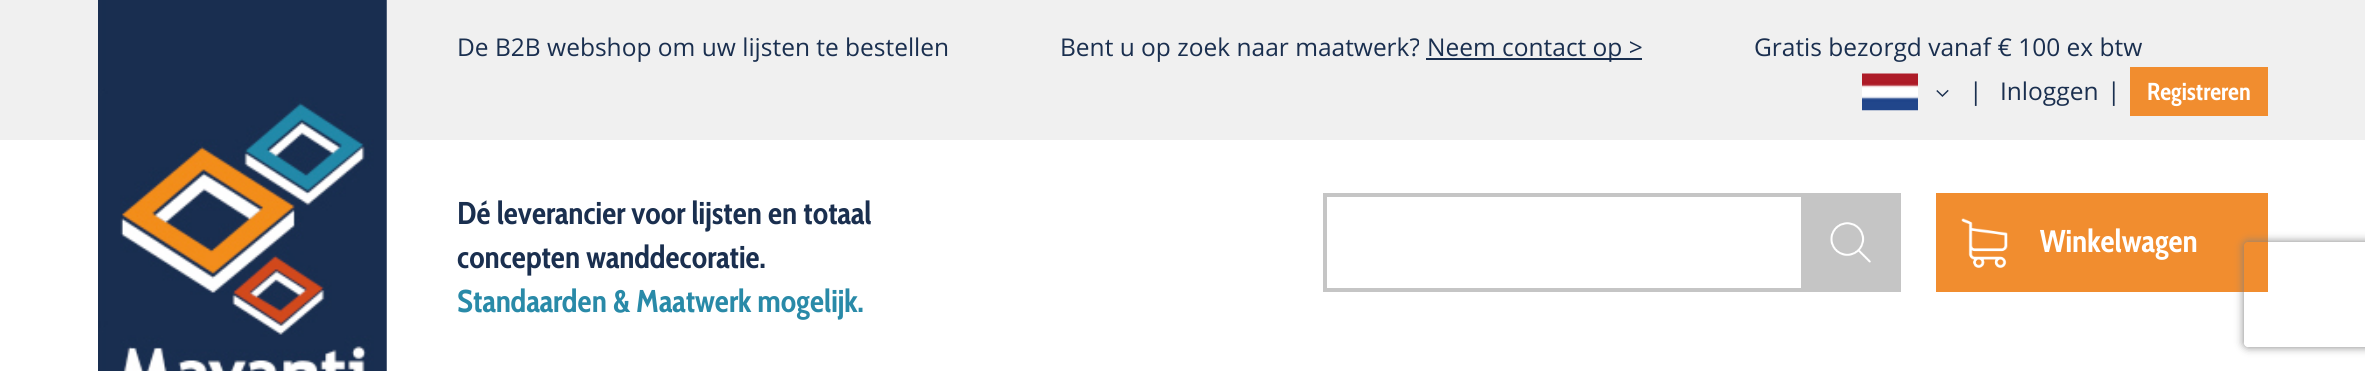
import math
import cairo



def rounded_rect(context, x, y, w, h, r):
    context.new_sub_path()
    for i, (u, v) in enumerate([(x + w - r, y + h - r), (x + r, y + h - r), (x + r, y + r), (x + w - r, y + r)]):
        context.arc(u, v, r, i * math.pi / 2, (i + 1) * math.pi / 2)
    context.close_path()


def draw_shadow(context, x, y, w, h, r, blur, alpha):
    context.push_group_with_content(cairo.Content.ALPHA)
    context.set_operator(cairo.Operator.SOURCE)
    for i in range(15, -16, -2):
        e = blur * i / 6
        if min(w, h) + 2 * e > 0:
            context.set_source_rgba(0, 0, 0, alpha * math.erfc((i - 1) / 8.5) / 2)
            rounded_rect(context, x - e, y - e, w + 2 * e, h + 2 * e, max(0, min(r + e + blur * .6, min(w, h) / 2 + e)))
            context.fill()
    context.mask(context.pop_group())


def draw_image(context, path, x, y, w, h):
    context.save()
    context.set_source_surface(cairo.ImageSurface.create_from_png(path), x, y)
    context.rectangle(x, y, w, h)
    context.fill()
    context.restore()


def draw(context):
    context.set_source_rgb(1, 1, 1)
    context.paint()
    context.set_source_rgb(240 / 255, 240 / 255, 240 / 255)
    context.rectangle(0, 0, 2365, 140)
    context.fill()
    context.set_source_rgb(26 / 255, 47 / 255, 79 / 255)
    context.rectangle(1426, 58, 216, 2)
    context.fill()
    draw_image(context, "images/1.png", 1862, 73, 56, 38)
    draw_image(context, "images/2.png", 1936, 89, 13, 8)
    context.set_source_rgb(241 / 255, 141 / 255, 47 / 255)
    context.rectangle(2130, 67, 138, 49)
    context.fill()
    draw_image(context, "images/3.png", 98, 0, 289, 371)
    context.rectangle(1325, 195, 574, 95)
    context.set_source_rgb(197 / 255, 197 / 255, 197 / 255)
    context.set_line_width(4)
    context.stroke()
    context.rectangle(1801, 193, 100, 99)
    context.fill()
    draw_image(context, "images/4.png", 1830, 222, 41, 41)
    context.set_source_rgb(241 / 255, 141 / 255, 47 / 255)
    context.rectangle(1936, 193, 332, 99)
    context.fill()
    draw_image(context, "images/5.png", 1961, 218, 47, 50)
    context.save()
    context.set_fill_rule(cairo.FillRule.EVEN_ODD)
    context.new_path()
    context.move_to(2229, 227)
    context.line_to(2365, 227)
    context.line_to(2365, 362)
    context.line_to(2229, 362)
    context.close_path()
    context.move_to(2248, 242)
    context.line_to(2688, 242)
    context.curve_to(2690, 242, 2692, 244, 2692, 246)
    context.line_to(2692, 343)
    context.curve_to(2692, 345, 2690, 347, 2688, 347)
    context.line_to(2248, 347)
    context.curve_to(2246, 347, 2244, 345, 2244, 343)
    context.line_to(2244, 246)
    context.curve_to(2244, 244, 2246, 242, 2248, 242)
    context.close_path()
    context.clip()
    context.set_source_rgb(128 / 255, 128 / 255, 128 / 255)
    draw_shadow(context, 2244, 242, 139, 105, 4, 4.5, 1)
    context.restore()
    context.select_font_face("Open Sans")
    context.set_font_size(24.5)
    context.set_source_rgb(26 / 255, 47 / 255, 79 / 255)
    context.move_to(457, 56)
    context.show_text("De B2B webshop om uw lijsten te bestellen")
    context.move_to(1060, 56)
    context.show_text("Bent u op zoek naar maatwerk?")
    context.move_to(1427, 56)
    context.show_text("Neem contact op >")
    context.move_to(1754, 56)
    context.show_text("Gratis bezorgd vanaf € 100 ex btw")
    context.move_to(1969, 100)
    context.show_text("|")
    context.move_to(2000, 100)
    context.show_text("Inloggen")
    context.move_to(2107, 100)
    context.show_text("|")
    context.select_font_face("Cabin Condensed", cairo.FontSlant.NORMAL, cairo.FontWeight.BOLD)
    context.set_source_rgb(1, 1, 1)
    context.move_to(2147, 100)
    context.show_text("Registreren")
    context.set_font_size(31.5)
    context.set_source_rgb(26 / 255, 47 / 255, 79 / 255)
    context.move_to(457, 224)
    context.show_text("Dé leverancier voor lijsten en totaal")
    context.move_to(457, 268)
    context.show_text("concepten wanddecoratie.")
    context.set_source_rgb(41 / 255, 138 / 255, 168 / 255)
    context.move_to(457, 312)
    context.show_text("Standaarden & Maatwerk mogelijk.")
    context.set_source_rgb(1, 1, 1)
    context.move_to(2040, 252)
    context.show_text("Winkelwagen")


surface = cairo.ImageSurface(cairo.Format.RGB24, 2365, 371)
context = cairo.Context(surface)
options = cairo.FontOptions()
options.set_hint_metrics(cairo.HintMetrics.OFF)
options.set_hint_style(cairo.HintStyle.NONE)
context.set_font_options(options)
context.set_miter_limit(4)
draw(context)
surface.write_to_png("out.png")
